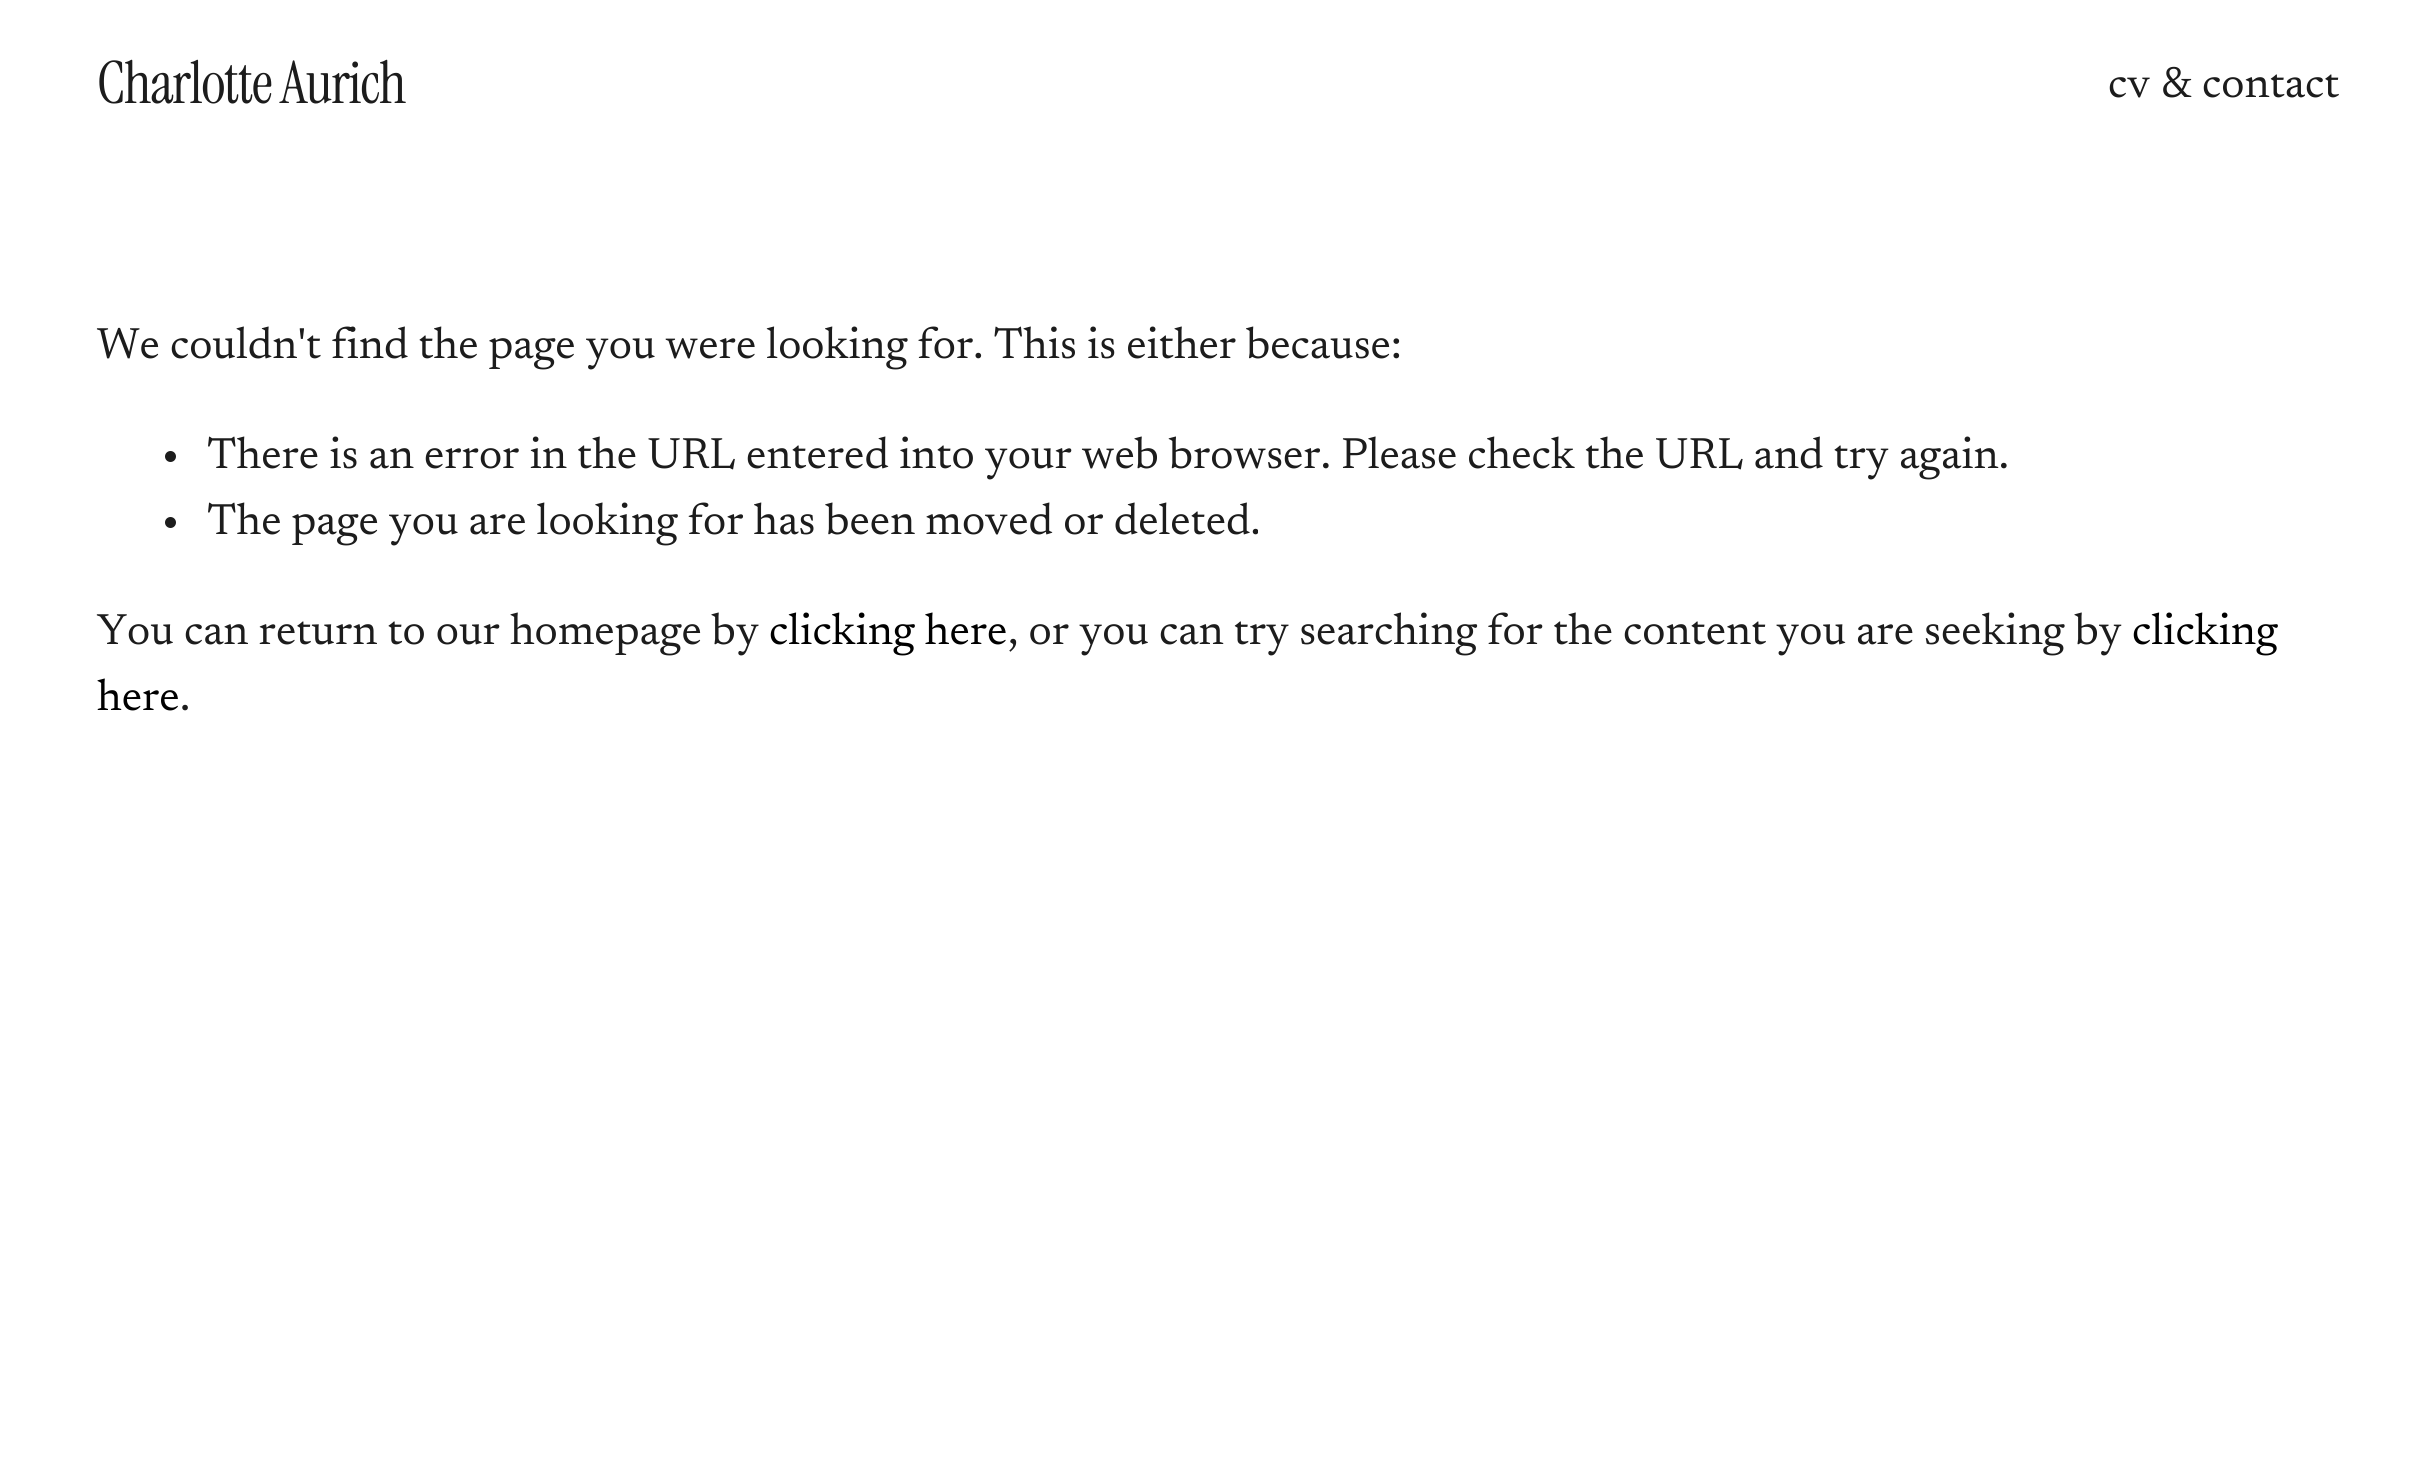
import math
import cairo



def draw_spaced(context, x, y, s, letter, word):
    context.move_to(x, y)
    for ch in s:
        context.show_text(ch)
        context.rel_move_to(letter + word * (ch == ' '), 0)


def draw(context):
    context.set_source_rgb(1, 1, 1)
    context.paint()
    context.set_source_rgb(28 / 255, 28 / 255, 28 / 255)
    context.arc(170.5, 456.5, 5.5, 0, 2 * math.pi)
    context.fill()
    context.arc(170.5, 522.5, 5.5, 0, 2 * math.pi)
    context.fill()
    context.select_font_face("Instrument Serif")
    context.set_font_size(58.5)
    draw_spaced(context, 97, 103, "Charlotte Aurich", -1.2, 0)
    context.select_font_face("Newsreader")
    context.set_font_size(44)
    context.move_to(2108, 97)
    context.show_text("cv & contact")
    context.move_to(97, 358)
    context.show_text("We couldn't find the page you were looking for. This is either because:")
    context.move_to(207, 468)
    context.show_text("There is an error in the URL entered into your web browser. Please check the URL and try again.")
    context.move_to(207, 534)
    context.show_text("The page you are looking for has been moved or deleted.")
    context.move_to(97, 644)
    context.show_text("You can return to our homepage by")
    context.set_source_rgb(0, 0, 0)
    context.move_to(769, 644)
    context.show_text("clicking here")
    context.set_source_rgb(28 / 255, 28 / 255, 28 / 255)
    context.move_to(1008, 644)
    context.show_text(", or you can try searching for the content you are seeking by")
    context.set_source_rgb(0, 0, 0)
    context.move_to(2132, 644)
    context.show_text("clicking")
    context.move_to(97, 710)
    context.show_text("here")
    context.set_source_rgb(28 / 255, 28 / 255, 28 / 255)
    context.move_to(180, 710)
    context.show_text(".")


surface = cairo.ImageSurface(cairo.Format.RGB24, 2435, 1461)
context = cairo.Context(surface)
options = cairo.FontOptions()
options.set_hint_metrics(cairo.HintMetrics.OFF)
options.set_hint_style(cairo.HintStyle.NONE)
context.set_font_options(options)
context.set_miter_limit(4)
draw(context)
surface.write_to_png("out.png")
